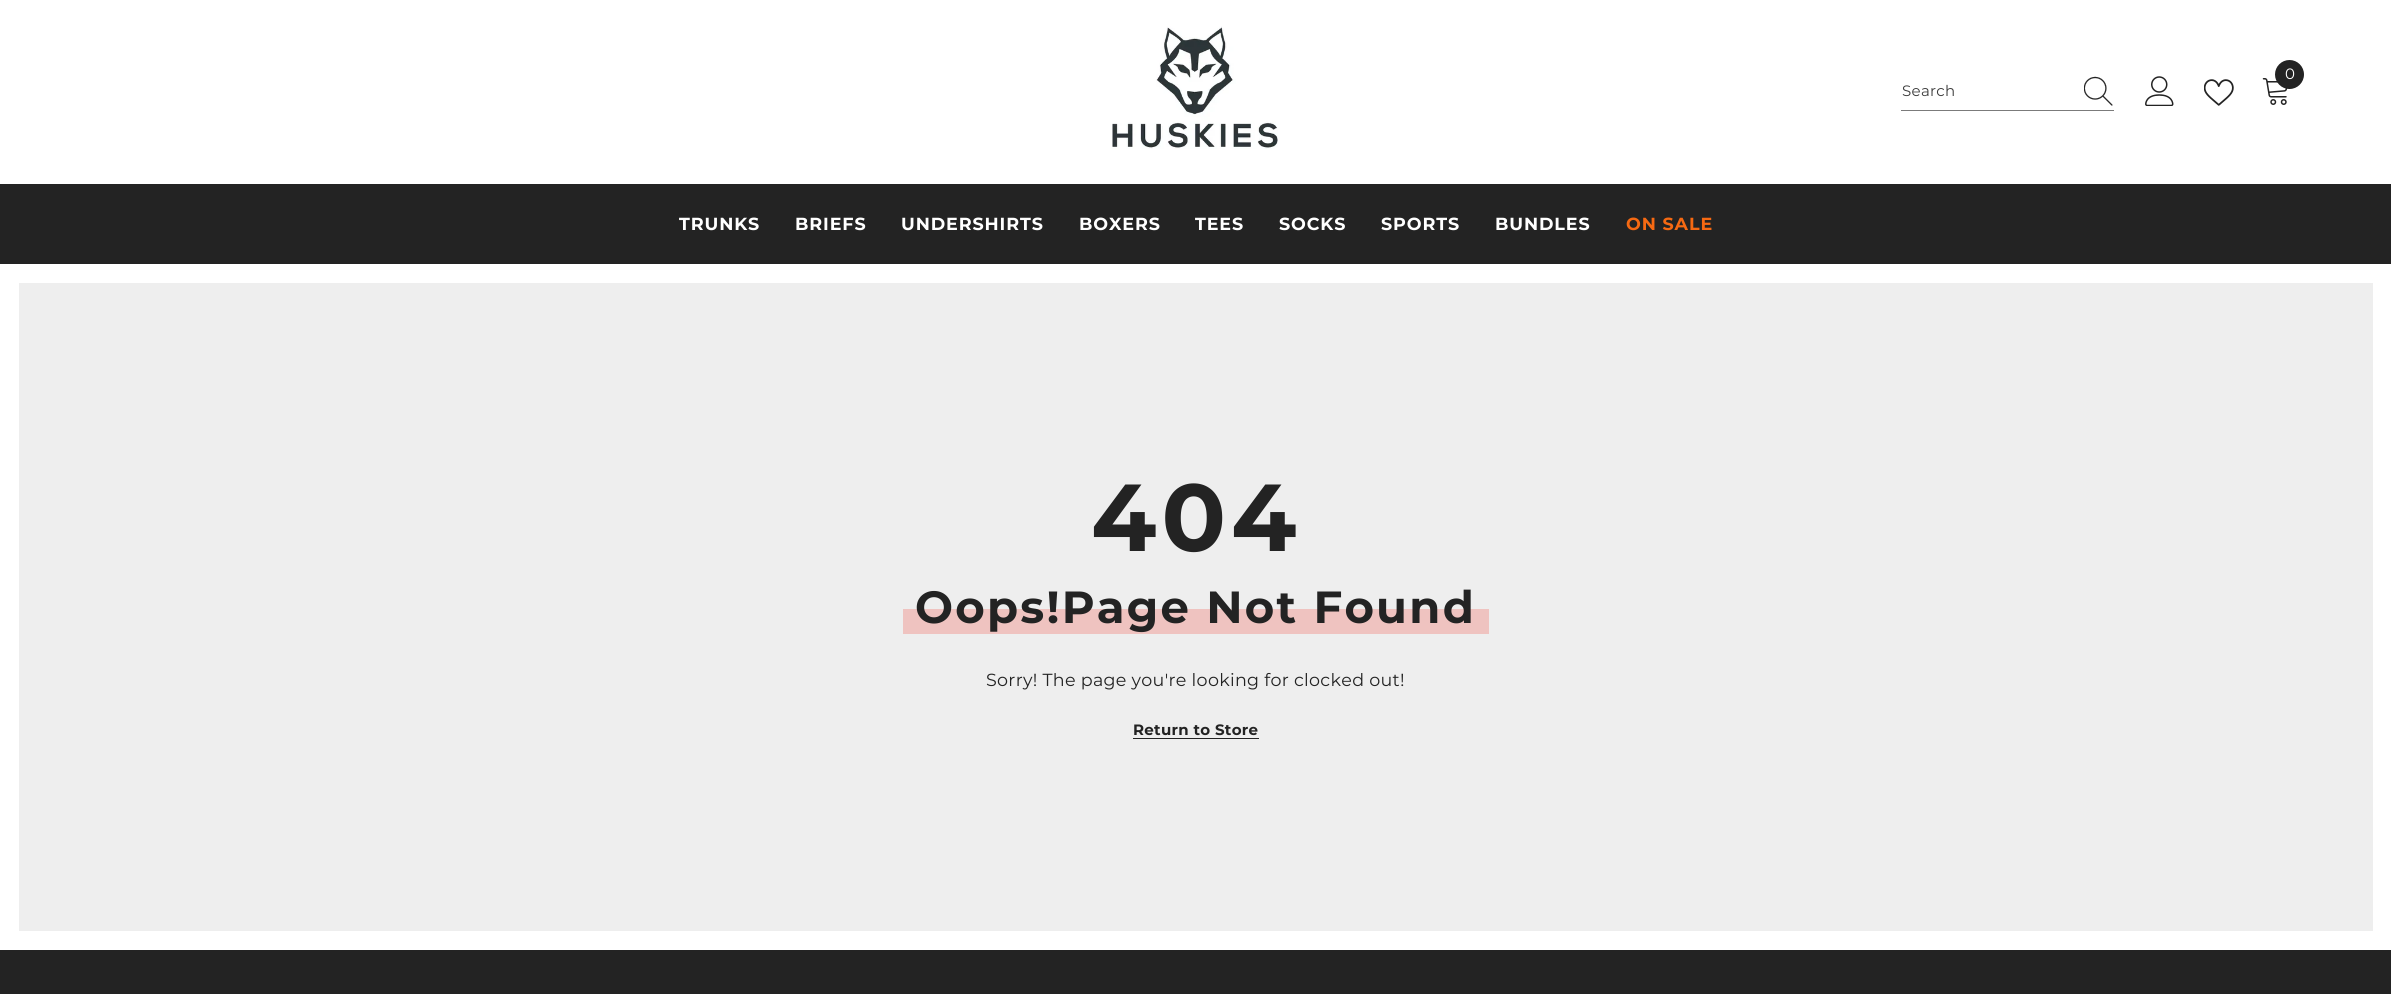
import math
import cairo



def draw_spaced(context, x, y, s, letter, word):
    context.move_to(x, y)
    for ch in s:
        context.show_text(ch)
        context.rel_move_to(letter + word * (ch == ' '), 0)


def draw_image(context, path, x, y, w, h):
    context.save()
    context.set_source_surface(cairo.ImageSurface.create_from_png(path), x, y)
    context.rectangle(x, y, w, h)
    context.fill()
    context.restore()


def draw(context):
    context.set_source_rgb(1, 1, 1)
    context.paint()
    draw_image(context, "images/1.png", 1112, 26, 166, 123)
    draw_image(context, "images/2.png", 2262, 78, 26, 27)
    context.set_source_rgb(35 / 255, 35 / 255, 35 / 255)
    context.arc(2289.5, 74.5, 14.5, 0, 2 * math.pi)
    context.fill()
    draw_image(context, "images/3.png", 2145, 76, 29, 30)
    draw_image(context, "images/4.png", 2204, 79, 30, 27)
    context.set_source_rgb(123 / 255, 123 / 255, 123 / 255)
    context.rectangle(1901, 110, 213, 1)
    context.fill()
    draw_image(context, "images/5.png", 2084, 76, 29, 30)
    context.set_source_rgb(35 / 255, 35 / 255, 35 / 255)
    context.rectangle(0, 184, 2391, 80)
    context.fill()
    context.set_source_rgb(238 / 255, 238 / 255, 238 / 255)
    context.rectangle(19, 283, 2354, 648)
    context.fill()
    context.set_source_rgb(239 / 255, 195 / 255, 192 / 255)
    context.rectangle(903, 609, 586, 25)
    context.fill()
    context.set_source_rgb(35 / 255, 35 / 255, 35 / 255)
    context.rectangle(1133, 738, 126, 1)
    context.fill()
    context.rectangle(0, 950, 2391, 44)
    context.fill()
    context.select_font_face("Montserrat")
    context.set_font_size(15)
    context.set_source_rgb(1, 1, 1)
    context.move_to(2285, 79)
    context.show_text("0")
    context.set_source_rgb(60 / 255, 60 / 255, 60 / 255)
    draw_spaced(context, 1902, 96, "Search", 0.3, 0)
    context.select_font_face("Montserrat", cairo.FontSlant.NORMAL, cairo.FontWeight.BOLD)
    context.set_font_size(17.5)
    context.set_source_rgb(1, 1, 1)
    draw_spaced(context, 679, 230, "TRUNKS", 0.9, 0)
    draw_spaced(context, 795, 230, "BRIEFS", 0.9, 0)
    draw_spaced(context, 901, 230, "UNDERSHIRTS", 0.9, 0)
    draw_spaced(context, 1079, 230, "BOXERS", 0.9, 0)
    draw_spaced(context, 1195, 230, "TEES", 0.9, 0)
    draw_spaced(context, 1279, 230, "SOCKS", 0.9, 0)
    draw_spaced(context, 1381, 230, "SPORTS", 0.9, 0)
    draw_spaced(context, 1495, 230, "BUNDLES", 0.9, 0)
    context.set_source_rgb(246 / 255, 105 / 255, 18 / 255)
    draw_spaced(context, 1626, 230, "ON SALE", 0.9, 0)
    context.set_font_size(95)
    context.set_source_rgb(35 / 255, 35 / 255, 35 / 255)
    draw_spaced(context, 1091, 551, "404", 5, 0)
    context.set_font_size(45)
    draw_spaced(context, 915, 623, "Oops!Page Not Found", 2.25, 0)
    context.select_font_face("Montserrat")
    context.set_font_size(17.5)
    draw_spaced(context, 986, 686, "Sorry! The page you're looking for clocked out!", 0.3, 0)
    context.select_font_face("Montserrat", cairo.FontSlant.NORMAL, cairo.FontWeight.BOLD)
    context.set_font_size(15)
    draw_spaced(context, 1133, 735, "Return to Store", 0.3, 0)


surface = cairo.ImageSurface(cairo.Format.RGB24, 2391, 994)
context = cairo.Context(surface)
options = cairo.FontOptions()
options.set_hint_metrics(cairo.HintMetrics.OFF)
options.set_hint_style(cairo.HintStyle.NONE)
context.set_font_options(options)
context.set_miter_limit(4)
draw(context)
surface.write_to_png("out.png")
